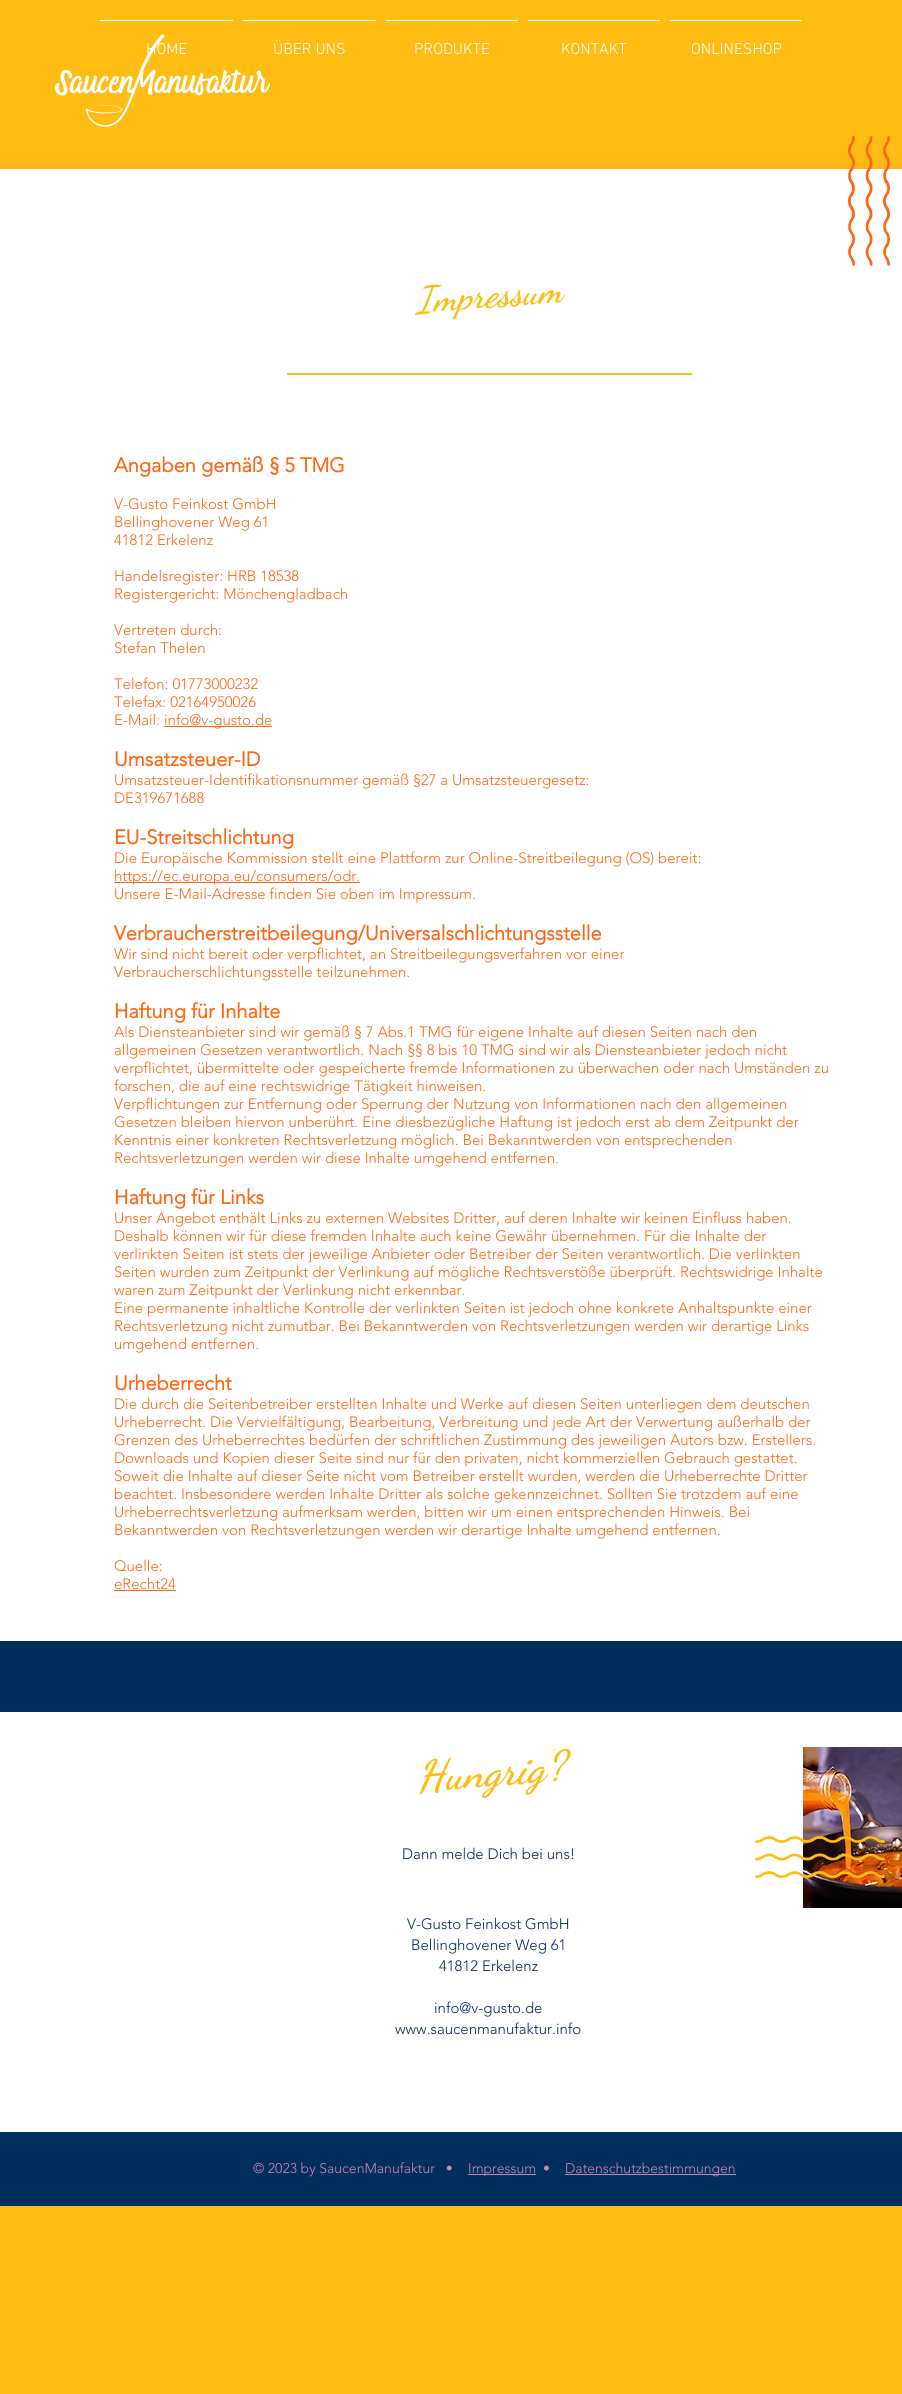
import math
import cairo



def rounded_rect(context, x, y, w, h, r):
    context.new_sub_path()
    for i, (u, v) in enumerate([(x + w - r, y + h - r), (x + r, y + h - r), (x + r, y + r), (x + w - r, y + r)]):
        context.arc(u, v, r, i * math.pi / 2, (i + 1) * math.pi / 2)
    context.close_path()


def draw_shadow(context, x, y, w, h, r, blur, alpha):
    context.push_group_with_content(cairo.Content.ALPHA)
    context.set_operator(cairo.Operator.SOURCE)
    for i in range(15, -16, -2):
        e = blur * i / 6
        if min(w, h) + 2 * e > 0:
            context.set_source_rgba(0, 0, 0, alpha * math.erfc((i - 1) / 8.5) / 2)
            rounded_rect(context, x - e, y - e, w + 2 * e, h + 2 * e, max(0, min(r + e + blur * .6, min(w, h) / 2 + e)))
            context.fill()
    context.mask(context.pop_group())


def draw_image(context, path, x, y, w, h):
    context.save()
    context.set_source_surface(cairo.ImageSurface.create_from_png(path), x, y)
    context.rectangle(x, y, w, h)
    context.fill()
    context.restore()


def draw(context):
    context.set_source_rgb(1, 189 / 255, 20 / 255)
    context.paint()
    context.set_source_rgb(1, 1, 1)
    context.rectangle(100, 20, 133, 1)
    context.fill()
    context.rectangle(243, 20, 133, 1)
    context.fill()
    context.rectangle(386, 20, 132, 1)
    context.fill()
    context.rectangle(528, 20, 132, 1)
    context.fill()
    context.rectangle(670, 20, 132, 1)
    context.fill()
    context.set_source_rgb(250 / 255, 58 / 255, 0)
    draw_shadow(context, -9, 179, 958, 1472, 0, 15.5, 0.28)
    context.set_source_rgb(1, 1, 1)
    context.rectangle(0, 169, 902, 1472)
    context.fill()
    draw_image(context, "images/2.png", 848, 136, 42, 130)
    context.set_source_rgb(1, 189 / 255, 20 / 255)
    context.rectangle(287, 373, 405, 2)
    context.fill()
    context.set_source_rgb(1, 102 / 255, 20 / 255)
    context.rectangle(164, 726, 108, 1)
    context.fill()
    context.rectangle(114, 882, 246, 1)
    context.fill()
    context.rectangle(114, 1590, 62, 1)
    context.fill()
    context.set_source_rgb(0, 46 / 255, 93 / 255)
    context.rectangle(0, 1641, 902, 565)
    context.fill()
    context.set_source_rgb(1, 1, 1)
    context.rectangle(0, 1712, 902, 420)
    context.fill()
    draw_image(context, "images/3.png", 803, 1747, 99, 161)
    draw_image(context, "images/4.png", 755, 1836, 130, 42)
    context.set_source_rgb(214 / 255, 131 / 255, 181 / 255)
    context.rectangle(468, 2174, 68, 1)
    context.fill()
    context.rectangle(565, 2174, 171, 1)
    context.fill()
    context.select_font_face("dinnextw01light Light")
    context.set_font_size(16)
    context.set_source_rgb(1, 1, 1)
    context.move_to(146, 54)
    context.show_text("HOME")
    draw_image(context, "images/1.png", 55, 34, 215, 93)
    context.move_to(273, 54)
    context.show_text("ÜBER UNS")
    context.move_to(414, 54)
    context.show_text("PRODUKTE")
    context.move_to(561, 54)
    context.show_text("KONTAKT")
    context.move_to(691, 54)
    context.show_text("ONLINESHOP")
    context.select_font_face("Dancing Script", cairo.FontSlant.ITALIC, cairo.FontWeight.BOLD)
    context.set_font_size(36)
    context.set_source_rgb(1, 189 / 255, 20 / 255)
    context.save()
    context.translate(416, 312)
    context.rotate(-4.2 * math.pi / 180)
    context.move_to(0, 0)
    context.show_text("Impressum")
    context.restore()
    context.select_font_face("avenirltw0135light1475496", cairo.FontSlant.NORMAL, cairo.FontWeight.BOLD)
    context.set_font_size(20)
    context.set_source_rgb(1, 102 / 255, 20 / 255)
    context.move_to(114, 472)
    context.show_text("Angaben gemäß § 5 TMG")
    context.select_font_face("avenirltw0135light1475496 Light")
    context.set_font_size(15)
    context.move_to(114, 509)
    context.show_text("V-Gusto Feinkost GmbH")
    context.move_to(114, 527)
    context.show_text("Bellinghovener Weg 61")
    context.move_to(114, 545)
    context.show_text("41812 Erkelenz")
    context.move_to(114, 581)
    context.show_text("Handelsregister: HRB 18538")
    context.move_to(114, 599)
    context.show_text("Registergericht: Mönchengladbach")
    context.move_to(114, 635)
    context.show_text("Vertreten durch:")
    context.move_to(114, 653)
    context.show_text("Stefan Thelen")
    context.move_to(114, 689)
    context.show_text("Telefon: 01773000232")
    context.move_to(114, 707)
    context.show_text("Telefax: 02164950026")
    context.move_to(114, 725)
    context.show_text("E-Mail:")
    context.move_to(164, 725)
    context.show_text("info@v-gusto.de")
    context.select_font_face("avenirltw0135light1475496", cairo.FontSlant.NORMAL, cairo.FontWeight.BOLD)
    context.set_font_size(20)
    context.move_to(114, 766)
    context.show_text("Umsatzsteuer-ID")
    context.select_font_face("avenirltw0135light1475496 Light")
    context.set_font_size(15)
    context.move_to(114, 785)
    context.show_text("Umsatzsteuer-Identifikationsnummer gemäß §27 a Umsatzsteuergesetz:")
    context.move_to(114, 803)
    context.show_text("DE319671688")
    context.select_font_face("avenirltw0135light1475496", cairo.FontSlant.NORMAL, cairo.FontWeight.BOLD)
    context.set_font_size(20)
    context.move_to(114, 844)
    context.show_text("EU-Streitschlichtung")
    context.select_font_face("avenirltw0135light1475496 Light")
    context.set_font_size(15)
    context.move_to(114, 863)
    context.show_text("Die Europäische Kommission stellt eine Plattform zur Online-Streitbeilegung (OS) bereit:")
    context.move_to(114, 881)
    context.show_text("https://ec.europa.eu/consumers/odr.")
    context.move_to(114, 899)
    context.show_text("Unsere E-Mail-Adresse finden Sie oben im Impressum.")
    context.select_font_face("avenirltw0135light1475496", cairo.FontSlant.NORMAL, cairo.FontWeight.BOLD)
    context.set_font_size(20)
    context.move_to(114, 940)
    context.show_text("Verbraucherstreitbeilegung/Universalschlichtungsstelle")
    context.select_font_face("avenirltw0135light1475496 Light")
    context.set_font_size(15)
    context.move_to(114, 959)
    context.show_text("Wir sind nicht bereit oder verpflichtet, an Streitbeilegungsverfahren vor einer")
    context.move_to(114, 977)
    context.show_text("Verbraucherschlichtungsstelle teilzunehmen.")
    context.select_font_face("avenirltw0135light1475496", cairo.FontSlant.NORMAL, cairo.FontWeight.BOLD)
    context.set_font_size(20)
    context.move_to(114, 1018)
    context.show_text("Haftung für Inhalte")
    context.select_font_face("avenirltw0135light1475496 Light")
    context.set_font_size(15)
    context.move_to(114, 1037)
    context.show_text("Als Diensteanbieter sind wir gemäß § 7 Abs.1 TMG für eigene Inhalte auf diesen Seiten nach den")
    context.move_to(114, 1055)
    context.show_text("allgemeinen Gesetzen verantwortlich. Nach §§ 8 bis 10 TMG sind wir als Diensteanbieter jedoch nicht")
    context.move_to(114, 1073)
    context.show_text("verpflichtet, übermittelte oder gespeicherte fremde Informationen zu überwachen oder nach Umständen zu")
    context.move_to(114, 1091)
    context.show_text("forschen, die auf eine rechtswidrige Tätigkeit hinweisen.")
    context.move_to(114, 1109)
    context.show_text("Verpflichtungen zur Entfernung oder Sperrung der Nutzung von Informationen nach den allgemeinen")
    context.move_to(114, 1127)
    context.show_text("Gesetzen bleiben hiervon unberührt. Eine diesbezügliche Haftung ist jedoch erst ab dem Zeitpunkt der")
    context.move_to(114, 1145)
    context.show_text("Kenntnis einer konkreten Rechtsverletzung möglich. Bei Bekanntwerden von entsprechenden")
    context.move_to(114, 1163)
    context.show_text("Rechtsverletzungen werden wir diese Inhalte umgehend entfernen.")
    context.select_font_face("avenirltw0135light1475496", cairo.FontSlant.NORMAL, cairo.FontWeight.BOLD)
    context.set_font_size(20)
    context.move_to(114, 1204)
    context.show_text("Haftung für Links")
    context.select_font_face("avenirltw0135light1475496 Light")
    context.set_font_size(15)
    context.move_to(114, 1223)
    context.show_text("Unser Angebot enthält Links zu externen Websites Dritter, auf deren Inhalte wir keinen Einfluss haben.")
    context.move_to(114, 1241)
    context.show_text("Deshalb können wir für diese fremden Inhalte auch keine Gewähr übernehmen. Für die Inhalte der")
    context.move_to(114, 1259)
    context.show_text("verlinkten Seiten ist stets der jeweilige Anbieter oder Betreiber der Seiten verantwortlich. Die verlinkten")
    context.move_to(114, 1277)
    context.show_text("Seiten wurden zum Zeitpunkt der Verlinkung auf mögliche Rechtsverstöße überprüft. Rechtswidrige Inhalte")
    context.move_to(114, 1295)
    context.show_text("waren zum Zeitpunkt der Verlinkung nicht erkennbar.")
    context.move_to(114, 1313)
    context.show_text("Eine permanente inhaltliche Kontrolle der verlinkten Seiten ist jedoch ohne konkrete Anhaltspunkte einer")
    context.move_to(114, 1331)
    context.show_text("Rechtsverletzung nicht zumutbar. Bei Bekanntwerden von Rechtsverletzungen werden wir derartige Links")
    context.move_to(114, 1349)
    context.show_text("umgehend entfernen.")
    context.select_font_face("avenirltw0135light1475496", cairo.FontSlant.NORMAL, cairo.FontWeight.BOLD)
    context.set_font_size(20)
    context.move_to(114, 1390)
    context.show_text("Urheberrecht")
    context.select_font_face("avenirltw0135light1475496 Light")
    context.set_font_size(15)
    context.move_to(114, 1409)
    context.show_text("Die durch die Seitenbetreiber erstellten Inhalte und Werke auf diesen Seiten unterliegen dem deutschen")
    context.move_to(114, 1427)
    context.show_text("Urheberrecht. Die Vervielfältigung, Bearbeitung, Verbreitung und jede Art der Verwertung außerhalb der")
    context.move_to(114, 1445)
    context.show_text("Grenzen des Urheberrechtes bedürfen der schriftlichen Zustimmung des jeweiligen Autors bzw. Erstellers.")
    context.move_to(114, 1463)
    context.show_text("Downloads und Kopien dieser Seite sind nur für den privaten, nicht kommerziellen Gebrauch gestattet.")
    context.move_to(114, 1481)
    context.show_text("Soweit die Inhalte auf dieser Seite nicht vom Betreiber erstellt wurden, werden die Urheberrechte Dritter")
    context.move_to(114, 1499)
    context.show_text("beachtet. Insbesondere werden Inhalte Dritter als solche gekennzeichnet. Sollten Sie trotzdem auf eine")
    context.move_to(114, 1517)
    context.show_text("Urheberrechtsverletzung aufmerksam werden, bitten wir um einen entsprechenden Hinweis. Bei")
    context.move_to(114, 1535)
    context.show_text("Bekanntwerden von Rechtsverletzungen werden wir derartige Inhalte umgehend entfernen.")
    context.move_to(114, 1571)
    context.show_text("Quelle:")
    context.move_to(114, 1589)
    context.show_text("eRecht24")
    context.select_font_face("Dancing Script", cairo.FontSlant.ITALIC, cairo.FontWeight.BOLD)
    context.set_font_size(43)
    context.set_source_rgb(1, 189 / 255, 20 / 255)
    context.save()
    context.translate(417, 1791)
    context.rotate(-4.2 * math.pi / 180)
    context.move_to(0, 0)
    context.show_text("Hungrig?")
    context.restore()
    context.select_font_face("avenirltw0135light1475496 Light")
    context.set_font_size(15)
    context.set_source_rgb(10 / 255, 40 / 255, 90 / 255)
    context.move_to(402, 1859)
    context.show_text("Dann melde Dich bei uns!")
    context.move_to(407, 1929)
    context.show_text("V-Gusto Feinkost GmbH")
    context.move_to(411, 1950)
    context.show_text("Bellinghovener Weg 61")
    context.move_to(439, 1971)
    context.show_text("41812 Erkelenz")
    context.move_to(434, 2013)
    context.show_text("info@v-gusto.de")
    context.move_to(395, 2034)
    context.show_text("www.saucenmanufaktur.info")
    context.set_font_size(14)
    context.set_source_rgb(214 / 255, 131 / 255, 181 / 255)
    context.move_to(253, 2173)
    context.show_text("© 2023 by SaucenManufaktur   •")
    context.move_to(468, 2173)
    context.show_text("Impressum")
    context.move_to(543, 2173)
    context.show_text("•")
    context.move_to(565, 2173)
    context.show_text("Datenschutzbestimmungen")


surface = cairo.ImageSurface(cairo.Format.RGB24, 902, 2394)
context = cairo.Context(surface)
options = cairo.FontOptions()
options.set_hint_metrics(cairo.HintMetrics.OFF)
options.set_hint_style(cairo.HintStyle.NONE)
context.set_font_options(options)
context.set_miter_limit(4)
draw(context)
surface.write_to_png("out.png")
